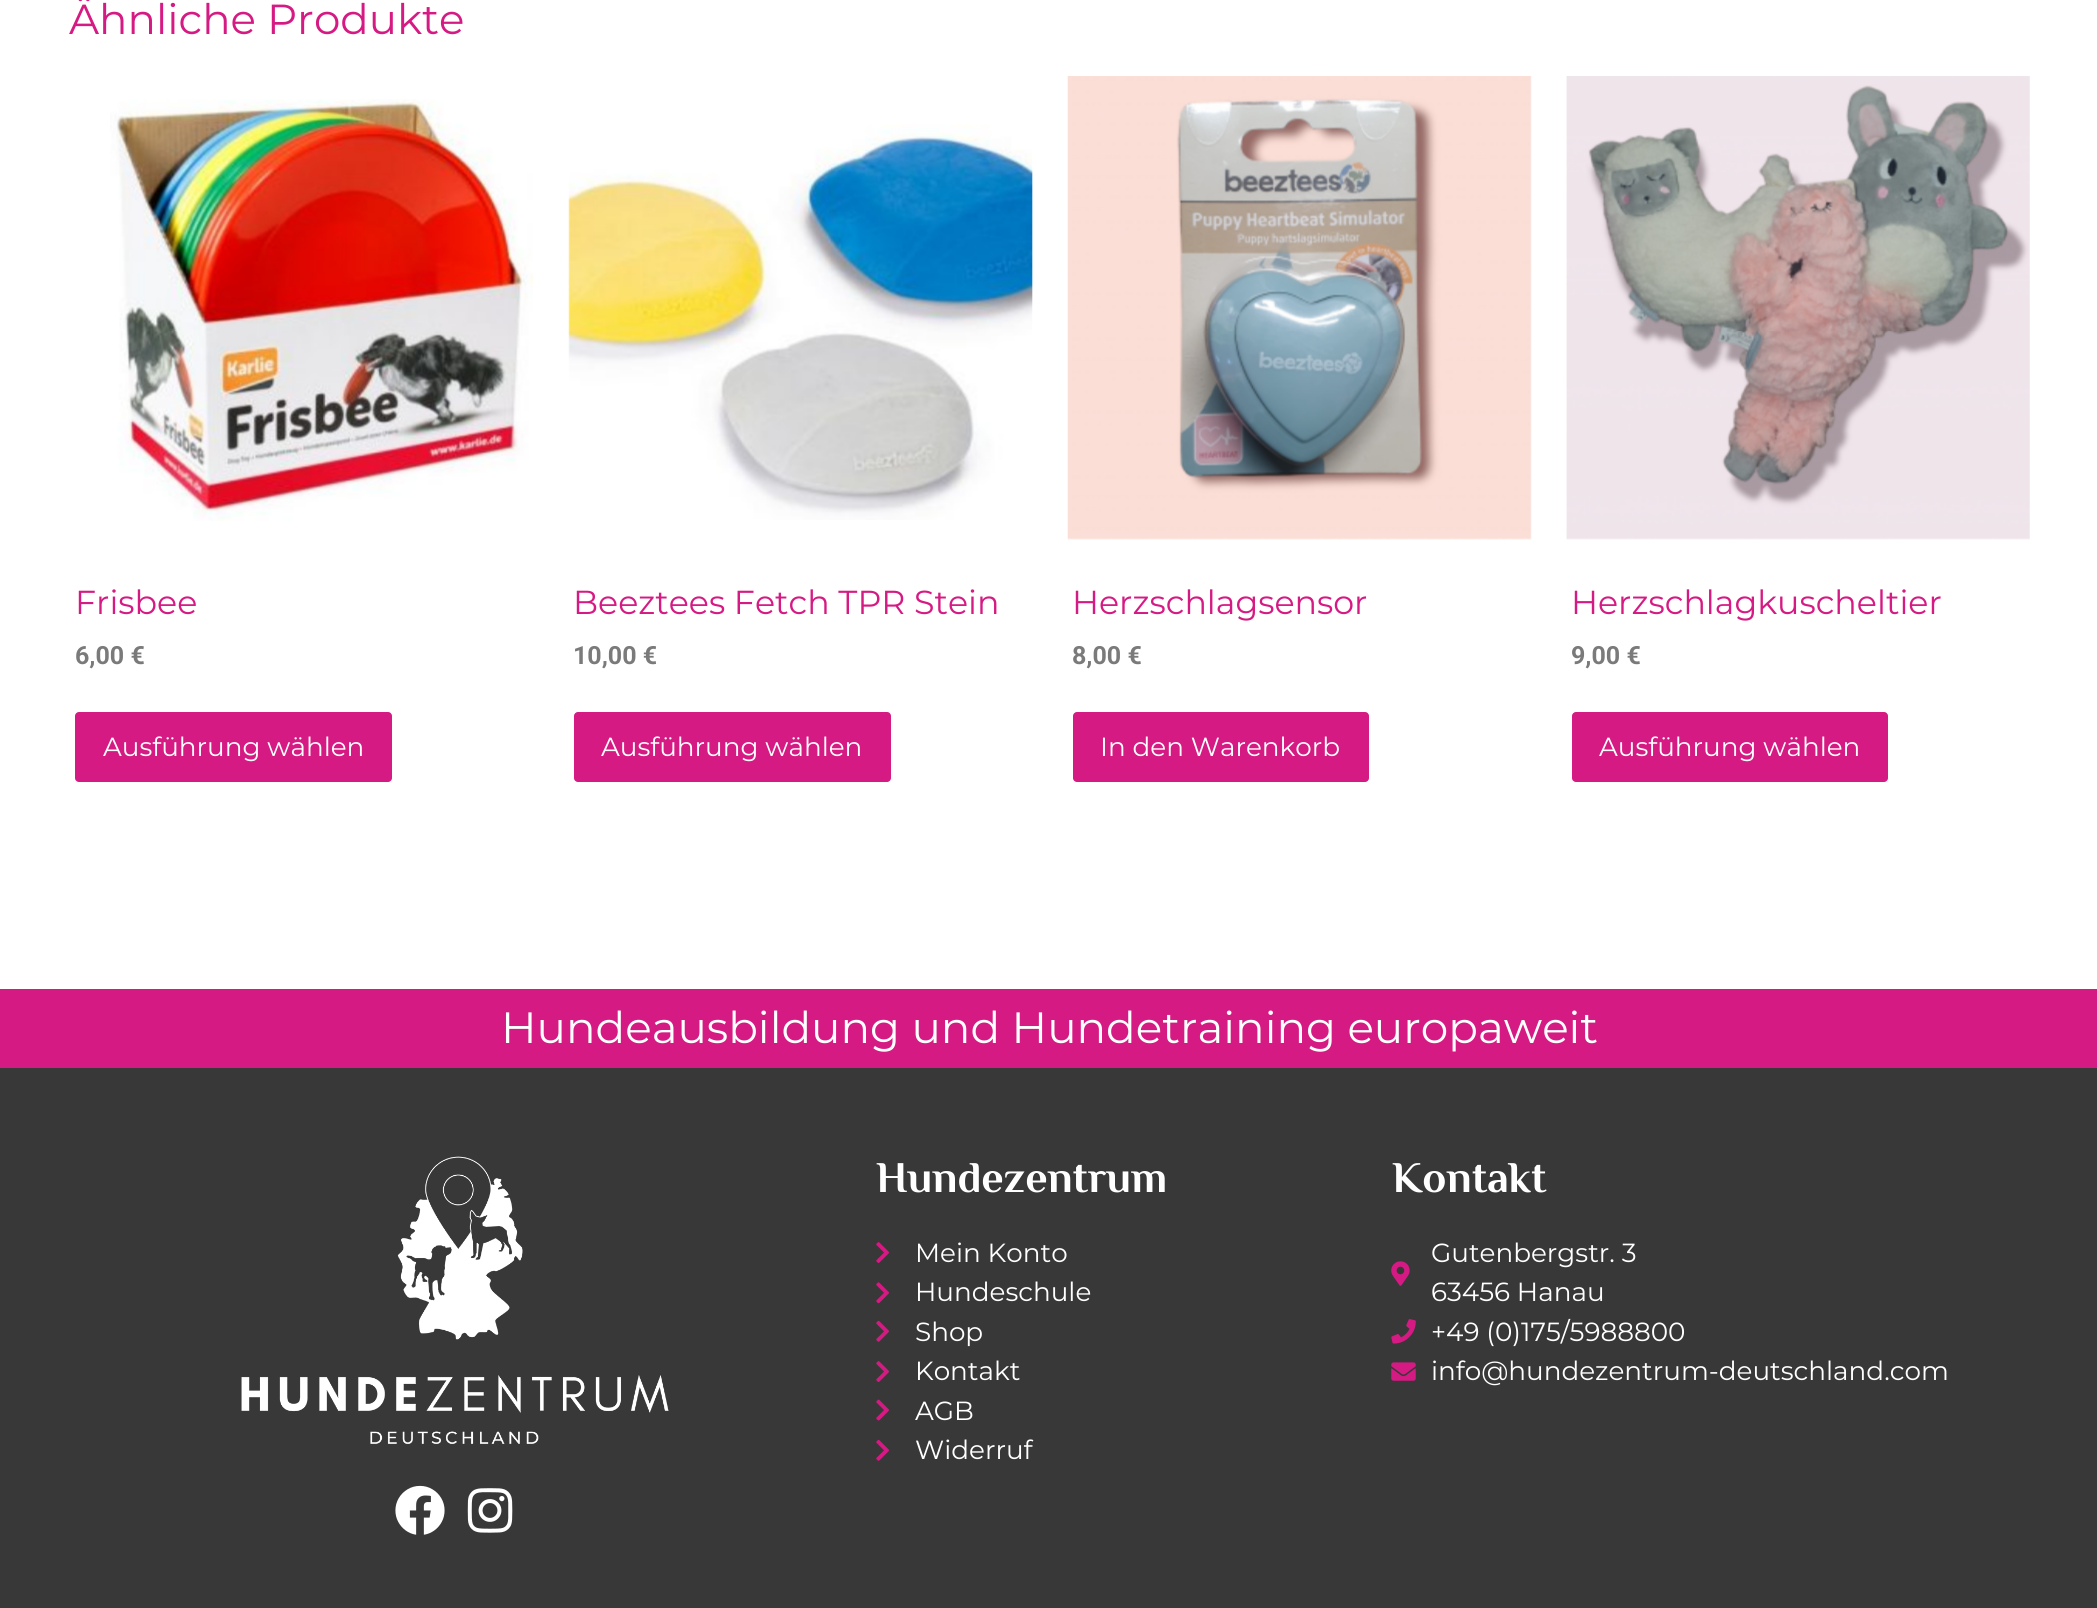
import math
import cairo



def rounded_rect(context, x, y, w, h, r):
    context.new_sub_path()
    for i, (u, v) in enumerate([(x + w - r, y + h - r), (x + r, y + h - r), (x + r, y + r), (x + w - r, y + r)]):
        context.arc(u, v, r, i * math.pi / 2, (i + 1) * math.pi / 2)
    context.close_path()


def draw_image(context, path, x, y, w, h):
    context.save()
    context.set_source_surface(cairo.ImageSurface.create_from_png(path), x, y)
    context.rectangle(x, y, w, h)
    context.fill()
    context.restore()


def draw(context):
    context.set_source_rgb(1, 1, 1)
    context.paint()
    draw_image(context, "images/1.png", 110, 99, 424, 422)
    context.set_source_rgb(214 / 255, 26 / 255, 131 / 255)
    rounded_rect(context, 75, 712, 317, 70, 4)
    context.fill()
    draw_image(context, "images/2.png", 568, 124, 465, 396)
    rounded_rect(context, 574, 712, 317, 70, 4)
    context.fill()
    draw_image(context, "images/3.png", 1067, 76, 465, 464)
    rounded_rect(context, 1073, 712, 296, 70, 4)
    context.fill()
    draw_image(context, "images/4.png", 1566, 76, 464, 464)
    rounded_rect(context, 1572, 712, 316, 70, 4)
    context.fill()
    context.rectangle(0, 989, 2097, 79)
    context.fill()
    context.set_source_rgb(56 / 255, 56 / 255, 56 / 255)
    context.rectangle(0, 1068, 2097, 540)
    context.fill()
    draw_image(context, "images/5.png", 241, 1156, 428, 288)
    draw_image(context, "images/6.png", 395, 1485, 50, 50)
    draw_image(context, "images/7.png", 467, 1488, 46, 45)
    draw_image(context, "images/8.png", 876, 1242, 13, 21)
    draw_image(context, "images/9.png", 876, 1282, 13, 22)
    draw_image(context, "images/10.png", 876, 1320, 13, 22)
    draw_image(context, "images/8.png", 876, 1361, 13, 21)
    draw_image(context, "images/11.png", 876, 1399, 13, 22)
    draw_image(context, "images/10.png", 876, 1439, 13, 22)
    draw_image(context, "images/12.png", 1391, 1261, 19, 25)
    draw_image(context, "images/13.png", 1391, 1319, 25, 25)
    draw_image(context, "images/14.png", 1391, 1362, 25, 19)
    context.select_font_face("Montserrat")
    context.set_font_size(42)
    context.set_source_rgb(214 / 255, 26 / 255, 131 / 255)
    context.move_to(69, 34)
    context.show_text("Ähnliche Produkte")
    context.set_font_size(33.25)
    context.move_to(75, 614)
    context.show_text("Frisbee")
    context.select_font_face("Roboto", cairo.FontSlant.NORMAL, cairo.FontWeight.BOLD)
    context.set_font_size(25)
    context.set_source_rgb(122 / 255, 122 / 255, 122 / 255)
    context.move_to(75, 664)
    context.show_text("6,00 €")
    context.select_font_face("Montserrat")
    context.set_font_size(26.25)
    context.set_source_rgb(1, 1, 1)
    context.move_to(103, 756)
    context.show_text("Ausführung wählen")
    context.set_font_size(33.25)
    context.set_source_rgb(214 / 255, 26 / 255, 131 / 255)
    context.move_to(573, 614)
    context.show_text("Beeztees Fetch TPR Stein")
    context.select_font_face("Roboto", cairo.FontSlant.NORMAL, cairo.FontWeight.BOLD)
    context.set_font_size(25)
    context.set_source_rgb(122 / 255, 122 / 255, 122 / 255)
    context.move_to(573, 664)
    context.show_text("10,00 €")
    context.select_font_face("Montserrat")
    context.set_font_size(26.25)
    context.set_source_rgb(1, 1, 1)
    context.move_to(601, 756)
    context.show_text("Ausführung wählen")
    context.set_font_size(33.25)
    context.set_source_rgb(214 / 255, 26 / 255, 131 / 255)
    context.move_to(1072, 614)
    context.show_text("Herzschlagsensor")
    context.select_font_face("Roboto", cairo.FontSlant.NORMAL, cairo.FontWeight.BOLD)
    context.set_font_size(25)
    context.set_source_rgb(122 / 255, 122 / 255, 122 / 255)
    context.move_to(1072, 664)
    context.show_text("8,00 €")
    context.select_font_face("Montserrat")
    context.set_font_size(26.25)
    context.set_source_rgb(1, 1, 1)
    context.move_to(1100, 756)
    context.show_text("In den Warenkorb")
    context.set_font_size(33.25)
    context.set_source_rgb(214 / 255, 26 / 255, 131 / 255)
    context.move_to(1571, 614)
    context.show_text("Herzschlagkuscheltier")
    context.select_font_face("Roboto", cairo.FontSlant.NORMAL, cairo.FontWeight.BOLD)
    context.set_font_size(25)
    context.set_source_rgb(122 / 255, 122 / 255, 122 / 255)
    context.move_to(1571, 664)
    context.show_text("9,00 €")
    context.select_font_face("Montserrat")
    context.set_font_size(26.25)
    context.set_source_rgb(1, 1, 1)
    context.move_to(1599, 756)
    context.show_text("Ausführung wählen")
    context.set_font_size(43.75)
    context.move_to(501, 1043)
    context.show_text("Hundeausbildung und Hundetraining europaweit")
    context.select_font_face("Philosopher", cairo.FontSlant.NORMAL, cairo.FontWeight.BOLD)
    context.move_to(876, 1192)
    context.show_text("Hundezentrum")
    context.select_font_face("Montserrat")
    context.set_font_size(26.25)
    context.move_to(915, 1262)
    context.show_text("Mein Konto")
    context.move_to(915, 1301)
    context.show_text("Hundeschule")
    context.move_to(915, 1341)
    context.show_text("Shop")
    context.move_to(915, 1380)
    context.show_text("Kontakt")
    context.move_to(915, 1420)
    context.show_text("AGB")
    context.move_to(915, 1459)
    context.show_text("Widerruf")
    context.select_font_face("Philosopher", cairo.FontSlant.NORMAL, cairo.FontWeight.BOLD)
    context.set_font_size(43.75)
    context.move_to(1392, 1192)
    context.show_text("Kontakt")
    context.select_font_face("Montserrat")
    context.set_font_size(26.25)
    context.move_to(1431, 1262)
    context.show_text("Gutenbergstr. 3")
    context.move_to(1431, 1301)
    context.show_text("63456 Hanau")
    context.move_to(1431, 1341)
    context.show_text("+49 (0)175/5988800")
    context.move_to(1431, 1380)
    context.show_text("info@hundezentrum-deutschland.com")


surface = cairo.ImageSurface(cairo.Format.RGB24, 2097, 1608)
context = cairo.Context(surface)
options = cairo.FontOptions()
options.set_hint_metrics(cairo.HintMetrics.OFF)
options.set_hint_style(cairo.HintStyle.NONE)
context.set_font_options(options)
context.set_miter_limit(4)
draw(context)
surface.write_to_png("out.png")
